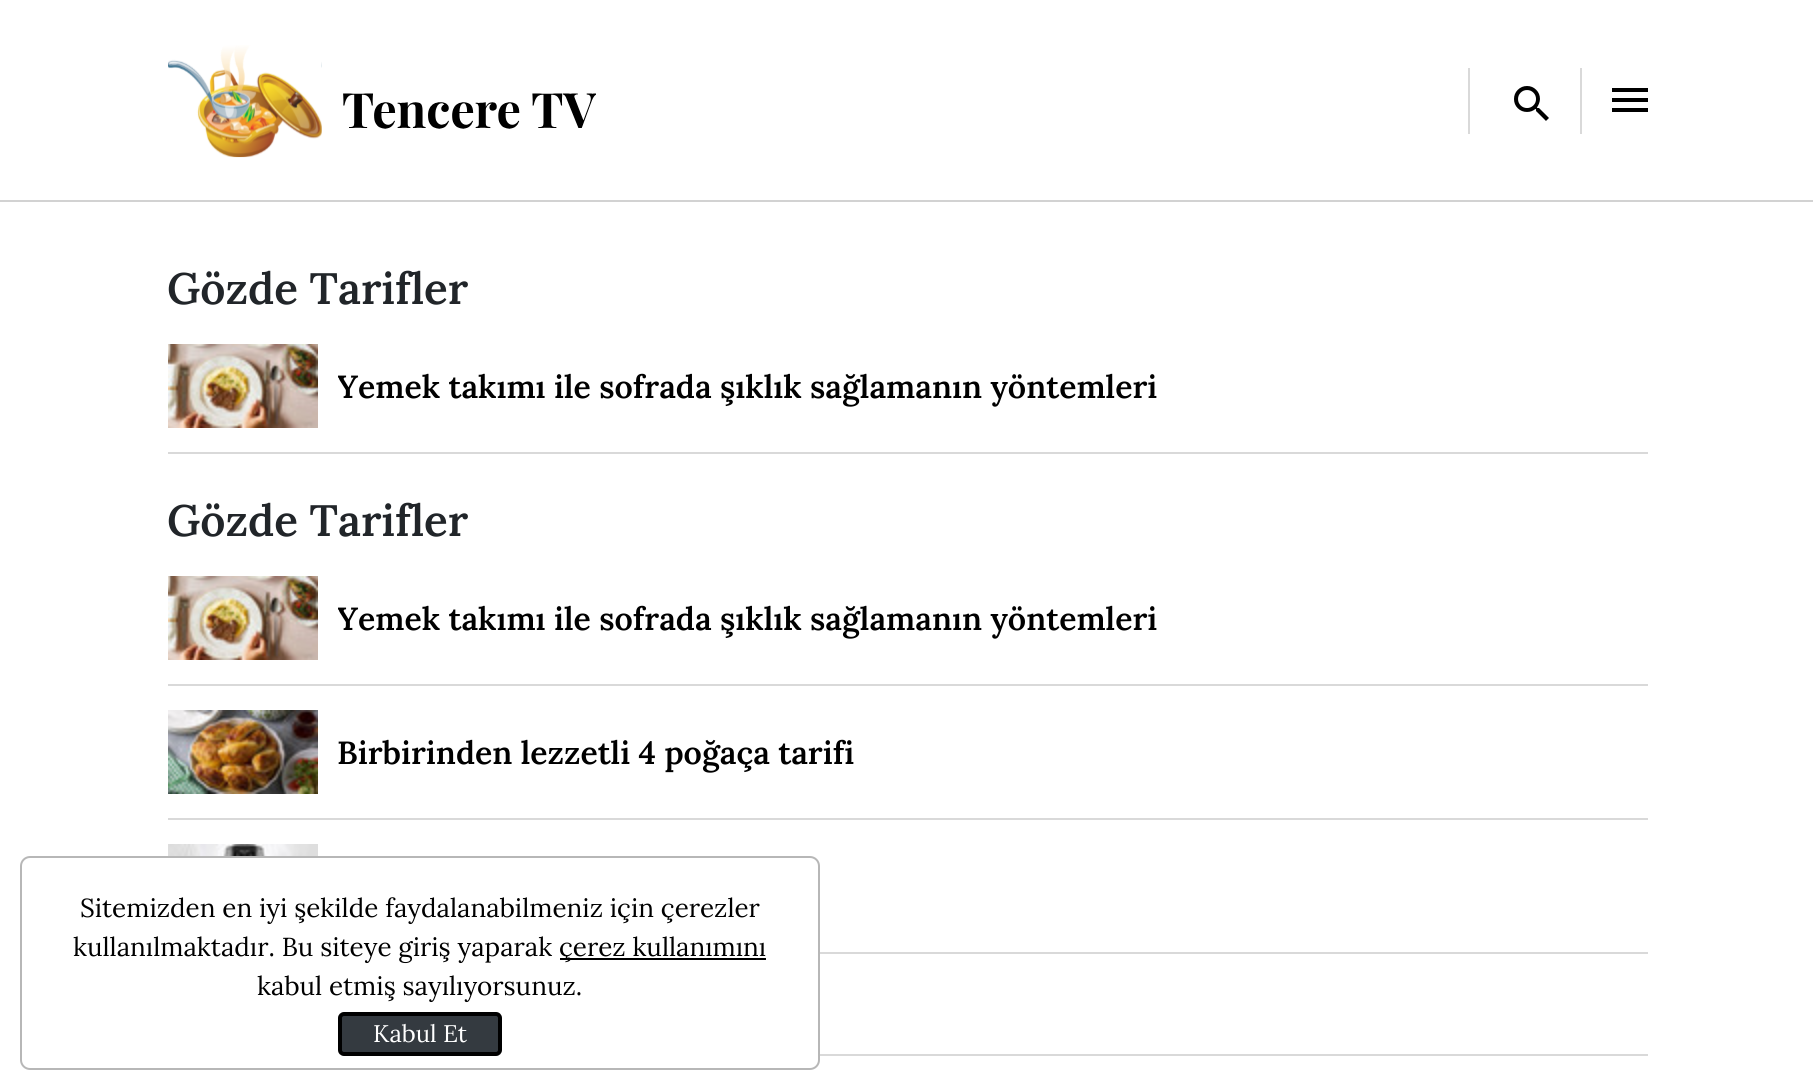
import math
import cairo



def rounded_rect(context, x, y, w, h, r):
    context.new_sub_path()
    for i, (u, v) in enumerate([(x + w - r, y + h - r), (x + r, y + h - r), (x + r, y + r), (x + w - r, y + r)]):
        context.arc(u, v, r, i * math.pi / 2, (i + 1) * math.pi / 2)
    context.close_path()


def draw_image(context, path, x, y, w, h):
    context.save()
    context.set_source_surface(cairo.ImageSurface.create_from_png(path), x, y)
    context.rectangle(x, y, w, h)
    context.fill()
    context.restore()


def draw(context):
    context.set_source_rgb(1, 1, 1)
    context.paint()
    context.set_source_rgb(210 / 255, 210 / 255, 210 / 255)
    context.rectangle(0, 200, 1813, 2)
    context.fill()
    draw_image(context, "images/1.png", 168, 45, 428, 113)
    context.set_source_rgb(217 / 255, 217 / 255, 217 / 255)
    context.rectangle(1468, 68, 2, 66)
    context.fill()
    draw_image(context, "images/2.png", 1514, 86, 35, 35)
    context.rectangle(1580, 68, 2, 66)
    context.fill()
    context.set_source_rgb(0, 0, 0)
    context.new_path()
    context.move_to(1612, 88)
    context.line_to(1648, 88)
    context.line_to(1648, 92)
    context.line_to(1612, 92)
    context.close_path()
    context.move_to(1612, 102)
    context.line_to(1612, 98)
    context.line_to(1648, 98)
    context.line_to(1648, 102)
    context.close_path()
    context.move_to(1612, 112)
    context.line_to(1612, 108)
    context.line_to(1648, 108)
    context.line_to(1648, 112)
    context.close_path()
    context.fill()
    context.set_source_rgb(217 / 255, 217 / 255, 217 / 255)
    context.rectangle(168, 452, 1480, 2)
    context.fill()
    draw_image(context, "images/3.png", 168, 344, 150, 84)
    context.rectangle(168, 684, 1480, 2)
    context.fill()
    draw_image(context, "images/3.png", 168, 576, 150, 84)
    context.rectangle(168, 818, 1480, 2)
    context.fill()
    draw_image(context, "images/4.png", 168, 710, 150, 84)
    context.rectangle(820, 952, 828, 2)
    context.fill()
    draw_image(context, "images/5.png", 168, 844, 150, 12)
    context.rectangle(820, 1054, 828, 2)
    context.fill()
    rounded_rect(context, 21, 857, 798, 212, 9)
    context.set_source_rgb(183 / 255, 183 / 255, 183 / 255)
    context.stroke()
    context.set_source_rgb(0, 0, 0)
    context.rectangle(560, 958, 206, 2)
    context.fill()
    context.set_source_rgb(52 / 255, 58 / 255, 64 / 255)
    rounded_rect(context, 340, 1014, 160, 40, 4)
    context.fill_preserve()
    context.set_source_rgb(0, 0, 0)
    context.set_line_width(4)
    context.stroke()
    context.select_font_face("Lora SemiBold")
    context.set_font_size(44)
    context.set_source_rgb(33 / 255, 37 / 255, 41 / 255)
    context.move_to(167, 304)
    context.show_text("Gözde Tarifler")
    context.save()
    context.rectangle(338, 362, 1310, 48)
    context.clip()
    context.set_font_size(32)
    context.set_source_rgb(0, 0, 0)
    context.move_to(337, 398)
    context.show_text("Yemek takımı ile sofrada şıklık sağlamanın yöntemleri")
    context.restore()
    context.move_to(167, 536)
    context.show_text("Gözde Tarifler")
    context.save()
    context.rectangle(338, 594, 1310, 48)
    context.clip()
    context.set_font_size(32)
    context.set_source_rgb(0, 0, 0)
    context.move_to(337, 630)
    context.show_text("Yemek takımı ile sofrada şıklık sağlamanın yöntemleri")
    context.restore()
    context.set_font_size(32)
    context.set_source_rgb(0, 0, 0)
    context.move_to(337, 764)
    context.show_text("Birbirinden lezzetli 4 poğaça tarifi")
    context.select_font_face("Lora")
    context.set_font_size(26)
    context.move_to(80, 917)
    context.show_text("Sitemizden en iyi şekilde faydalanabilmeniz için çerezler")
    context.move_to(73, 956)
    context.show_text("kullanılmaktadır. Bu siteye giriş yaparak")
    context.move_to(559, 956)
    context.show_text("çerez kullanımını")
    context.move_to(257, 995)
    context.show_text("kabul etmiş sayılıyorsunuz.")
    context.set_font_size(24)
    context.set_source_rgb(1, 1, 1)
    context.move_to(373, 1042)
    context.show_text("Kabul Et")


surface = cairo.ImageSurface(cairo.Format.RGB24, 1813, 1089)
context = cairo.Context(surface)
options = cairo.FontOptions()
options.set_hint_metrics(cairo.HintMetrics.OFF)
options.set_hint_style(cairo.HintStyle.NONE)
context.set_font_options(options)
context.set_miter_limit(4)
draw(context)
surface.write_to_png("out.png")
